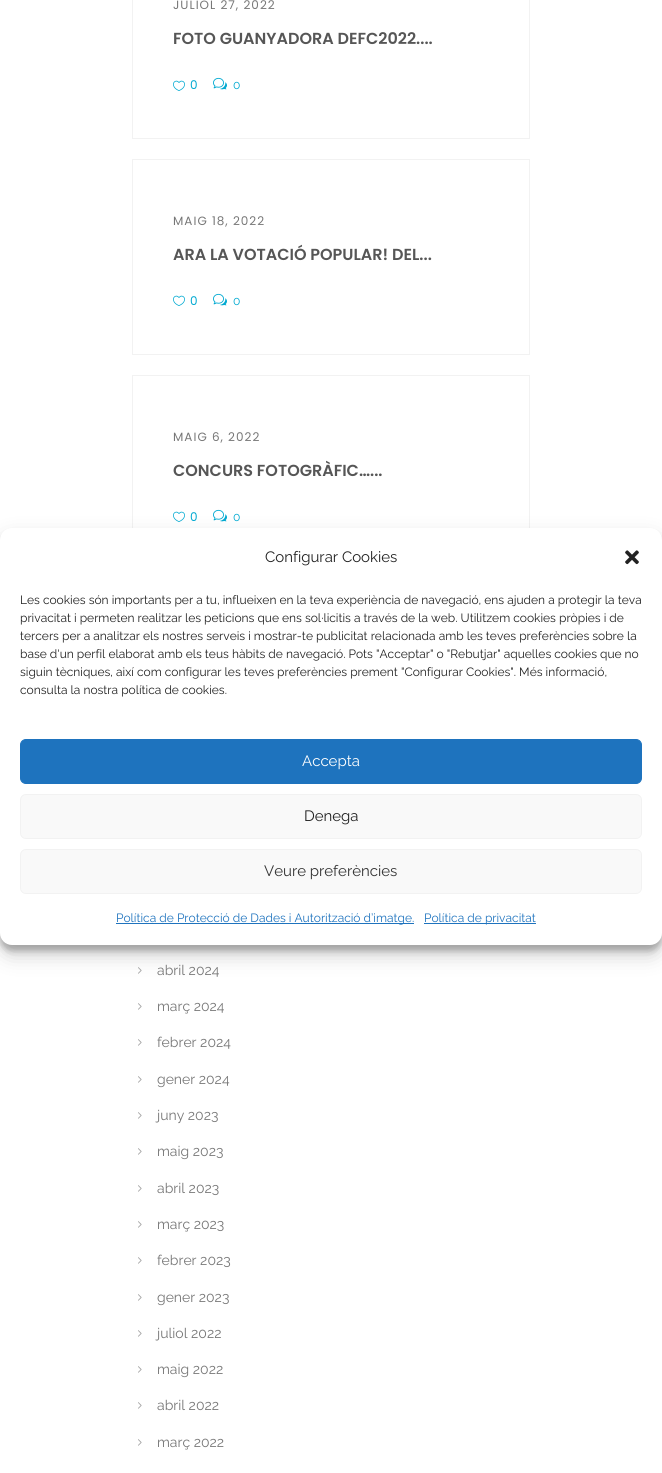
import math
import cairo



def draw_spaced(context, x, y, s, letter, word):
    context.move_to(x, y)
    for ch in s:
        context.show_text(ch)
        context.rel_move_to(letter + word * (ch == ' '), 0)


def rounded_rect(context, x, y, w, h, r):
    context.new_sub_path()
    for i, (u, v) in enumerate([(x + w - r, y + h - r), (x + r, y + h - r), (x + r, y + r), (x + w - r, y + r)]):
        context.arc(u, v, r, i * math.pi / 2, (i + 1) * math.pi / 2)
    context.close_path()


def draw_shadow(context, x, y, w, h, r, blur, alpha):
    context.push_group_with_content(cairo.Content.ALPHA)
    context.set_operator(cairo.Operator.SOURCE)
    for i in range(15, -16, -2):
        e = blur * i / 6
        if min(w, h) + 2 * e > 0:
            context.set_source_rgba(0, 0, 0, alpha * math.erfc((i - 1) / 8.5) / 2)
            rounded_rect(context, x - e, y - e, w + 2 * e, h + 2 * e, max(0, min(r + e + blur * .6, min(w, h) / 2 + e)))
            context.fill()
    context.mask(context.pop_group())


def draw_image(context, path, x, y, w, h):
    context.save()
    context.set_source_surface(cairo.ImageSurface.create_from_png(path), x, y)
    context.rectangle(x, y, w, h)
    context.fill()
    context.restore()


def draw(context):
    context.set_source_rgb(1, 1, 1)
    context.paint()
    context.rectangle(132.5, -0.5, 397, 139)
    context.set_source_rgb(242 / 255, 242 / 255, 242 / 255)
    context.set_line_width(1)
    context.stroke()
    draw_image(context, "images/1.png", 173, 80, 12, 11)
    draw_image(context, "images/2.png", 213, 77, 14, 13)
    context.rectangle(132.5, 159.5, 397, 195)
    context.stroke()
    draw_image(context, "images/1.png", 173, 295, 12, 11)
    draw_image(context, "images/2.png", 213, 293, 14, 13)
    context.rectangle(132.5, 375.5, 397, 194)
    context.stroke()
    draw_image(context, "images/1.png", 173, 511, 12, 11)
    draw_image(context, "images/2.png", 213, 509, 14, 13)
    draw_image(context, "images/3.png", 138, 967, 4, 7)
    draw_image(context, "images/3.png", 138, 1003, 4, 7)
    draw_image(context, "images/3.png", 138, 1039, 4, 7)
    draw_image(context, "images/3.png", 138, 1076, 4, 7)
    draw_image(context, "images/3.png", 138, 1112, 4, 7)
    draw_image(context, "images/3.png", 138, 1148, 4, 7)
    draw_image(context, "images/3.png", 138, 1185, 4, 7)
    draw_image(context, "images/3.png", 138, 1221, 4, 7)
    draw_image(context, "images/3.png", 138, 1257, 4, 7)
    draw_image(context, "images/3.png", 138, 1294, 4, 7)
    draw_image(context, "images/3.png", 138, 1330, 4, 7)
    draw_image(context, "images/3.png", 138, 1366, 4, 7)
    draw_image(context, "images/3.png", 138, 1402, 4, 7)
    draw_image(context, "images/3.png", 138, 1439, 4, 7)
    context.set_source_rgb(0, 0, 0)
    draw_shadow(context, 0, 534, 662, 417, 12, 3, 0.23)
    draw_shadow(context, 0, 538, 662, 417, 12, 10, 0.19)
    context.set_source_rgb(1, 1, 1)
    rounded_rect(context, 0, 528, 662, 417, 12)
    context.fill()
    draw_image(context, "images/4.png", 625, 550, 14, 15)
    context.set_source_rgb(30 / 255, 115 / 255, 190 / 255)
    rounded_rect(context, 20.5, 739.5, 621, 44, 5.5)
    context.fill_preserve()
    context.stroke()
    context.set_source_rgb(249 / 255, 249 / 255, 249 / 255)
    rounded_rect(context, 20.5, 794.5, 621, 44, 5.5)
    context.fill_preserve()
    context.set_source_rgb(242 / 255, 242 / 255, 242 / 255)
    context.stroke()
    context.set_source_rgb(249 / 255, 249 / 255, 249 / 255)
    rounded_rect(context, 20.5, 849.5, 621, 44, 5.5)
    context.fill_preserve()
    context.set_source_rgb(242 / 255, 242 / 255, 242 / 255)
    context.stroke()
    context.set_source_rgb(30 / 255, 115 / 255, 190 / 255)
    context.rectangle(116, 923, 298, 1)
    context.fill()
    context.rectangle(424, 923, 112, 1)
    context.fill()
    context.select_font_face("Poppins")
    context.set_font_size(12)
    context.set_source_rgb(119 / 255, 119 / 255, 119 / 255)
    draw_spaced(context, 173, 9, "JULIOL 27, 2022", 1, 0)
    context.select_font_face("Poppins SemiBold")
    context.set_font_size(16)
    context.set_source_rgb(86 / 255, 86 / 255, 86 / 255)
    context.move_to(173, 44)
    context.show_text("FOTO GUANYADORA DEFC2022....")
    context.select_font_face("Poppins")
    context.set_font_size(12)
    context.set_source_rgb(0, 169 / 255, 209 / 255)
    context.move_to(190, 89)
    context.show_text("0")
    context.select_font_face("Raleway")
    context.move_to(233, 89)
    context.show_text("0")
    context.select_font_face("Poppins")
    context.set_source_rgb(119 / 255, 119 / 255, 119 / 255)
    draw_spaced(context, 173, 225, "MAIG 18, 2022", 1, 0)
    context.select_font_face("Poppins SemiBold")
    context.set_font_size(16)
    context.set_source_rgb(86 / 255, 86 / 255, 86 / 255)
    context.move_to(173, 260)
    context.show_text("ARA LA VOTACIÓ POPULAR! DEL...")
    context.select_font_face("Poppins")
    context.set_font_size(12)
    context.set_source_rgb(0, 169 / 255, 209 / 255)
    context.move_to(190, 305)
    context.show_text("0")
    context.select_font_face("Raleway")
    context.move_to(233, 305)
    context.show_text("0")
    context.select_font_face("Poppins")
    context.set_source_rgb(119 / 255, 119 / 255, 119 / 255)
    draw_spaced(context, 173, 441, "MAIG 6, 2022", 1, 0)
    context.select_font_face("Poppins SemiBold")
    context.set_font_size(16)
    context.set_source_rgb(86 / 255, 86 / 255, 86 / 255)
    context.move_to(173, 476)
    context.show_text("CONCURS FOTOGRÀFIC…...")
    context.select_font_face("Poppins")
    context.set_font_size(12)
    context.set_source_rgb(0, 169 / 255, 209 / 255)
    context.move_to(190, 521)
    context.show_text("0")
    context.select_font_face("Raleway")
    context.move_to(233, 521)
    context.show_text("0")
    context.set_font_size(14)
    context.set_source_rgb(119 / 255, 119 / 255, 119 / 255)
    context.move_to(157, 975)
    context.show_text("abril 2024")
    context.move_to(157, 1011)
    context.show_text("març 2024")
    context.move_to(157, 1047)
    context.show_text("febrer 2024")
    context.move_to(157, 1084)
    context.show_text("gener 2024")
    context.move_to(157, 1120)
    context.show_text("juny 2023")
    context.move_to(157, 1156)
    context.show_text("maig 2023")
    context.move_to(157, 1193)
    context.show_text("abril 2023")
    context.move_to(157, 1229)
    context.show_text("març 2023")
    context.move_to(157, 1265)
    context.show_text("febrer 2023")
    context.move_to(157, 1302)
    context.show_text("gener 2023")
    context.move_to(157, 1338)
    context.show_text("juliol 2022")
    context.move_to(157, 1374)
    context.show_text("maig 2022")
    context.move_to(157, 1410)
    context.show_text("abril 2022")
    context.move_to(157, 1447)
    context.show_text("març 2022")
    context.set_font_size(15)
    context.set_source_rgb(34 / 255, 34 / 255, 34 / 255)
    context.move_to(265, 562)
    context.show_text("Configurar Cookies")
    context.set_font_size(12)
    context.move_to(20, 604)
    context.show_text("Les cookies són importants per a tu, influeixen en la teva experiència de navegació, ens ajuden a protegir la teva")
    context.move_to(20, 622)
    context.show_text("privacitat i permeten realitzar les peticions que ens sol·licitis a través de la web. Utilitzem cookies pròpies i de")
    context.move_to(20, 640)
    context.show_text("tercers per a analitzar els nostres serveis i mostrar-te publicitat relacionada amb les teves preferències sobre la")
    context.move_to(20, 658)
    context.show_text("base d'un perfil elaborat amb els teus hàbits de navegació. Pots \"Acceptar\" o \"Rebutjar\" aquelles cookies que no")
    context.move_to(20, 676)
    context.show_text("siguin tècniques, així com configurar les teves preferències prement \"Configurar Cookies\". Més informació,")
    context.move_to(20, 694)
    context.show_text("consulta la nostra política de cookies.")
    context.set_font_size(15)
    context.set_source_rgb(1, 1, 1)
    context.move_to(302, 766)
    context.show_text("Accepta")
    context.set_source_rgb(34 / 255, 34 / 255, 34 / 255)
    context.move_to(304, 821)
    context.show_text("Denega")
    context.set_source_rgb(51 / 255, 51 / 255, 51 / 255)
    context.move_to(264, 876)
    context.show_text("Veure preferències")
    context.set_font_size(12)
    context.set_source_rgb(30 / 255, 115 / 255, 190 / 255)
    context.move_to(116, 922)
    context.show_text("Política de Protecció de Dades i Autorització d’imatge.")
    context.move_to(424, 922)
    context.show_text("Política de privacitat")


surface = cairo.ImageSurface(cairo.Format.RGB24, 662, 1473)
context = cairo.Context(surface)
options = cairo.FontOptions()
options.set_hint_metrics(cairo.HintMetrics.OFF)
options.set_hint_style(cairo.HintStyle.NONE)
context.set_font_options(options)
context.set_miter_limit(4)
draw(context)
surface.write_to_png("out.png")
